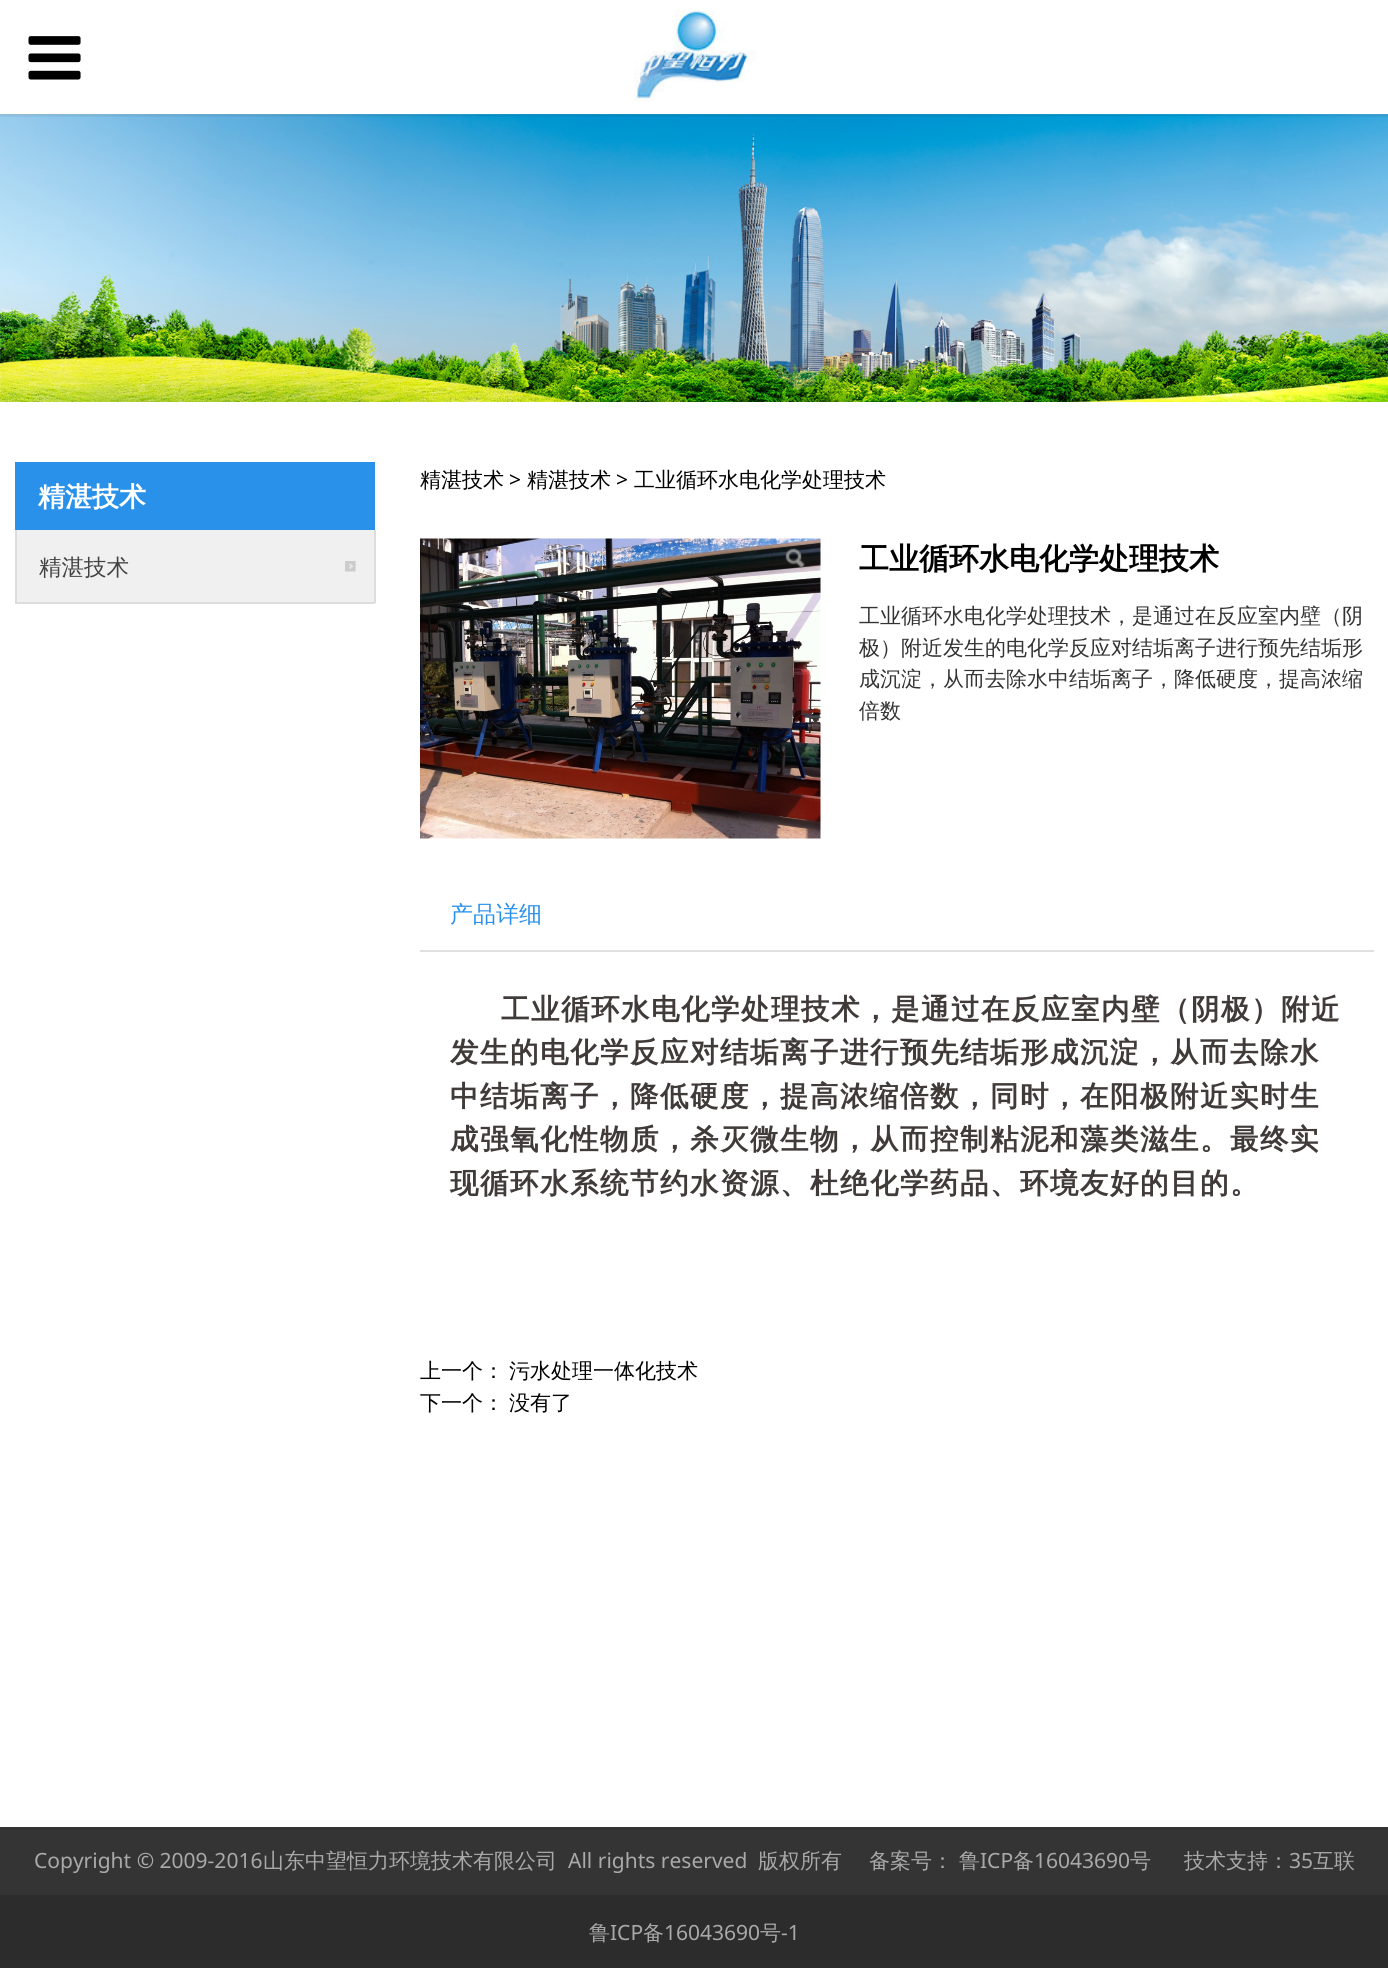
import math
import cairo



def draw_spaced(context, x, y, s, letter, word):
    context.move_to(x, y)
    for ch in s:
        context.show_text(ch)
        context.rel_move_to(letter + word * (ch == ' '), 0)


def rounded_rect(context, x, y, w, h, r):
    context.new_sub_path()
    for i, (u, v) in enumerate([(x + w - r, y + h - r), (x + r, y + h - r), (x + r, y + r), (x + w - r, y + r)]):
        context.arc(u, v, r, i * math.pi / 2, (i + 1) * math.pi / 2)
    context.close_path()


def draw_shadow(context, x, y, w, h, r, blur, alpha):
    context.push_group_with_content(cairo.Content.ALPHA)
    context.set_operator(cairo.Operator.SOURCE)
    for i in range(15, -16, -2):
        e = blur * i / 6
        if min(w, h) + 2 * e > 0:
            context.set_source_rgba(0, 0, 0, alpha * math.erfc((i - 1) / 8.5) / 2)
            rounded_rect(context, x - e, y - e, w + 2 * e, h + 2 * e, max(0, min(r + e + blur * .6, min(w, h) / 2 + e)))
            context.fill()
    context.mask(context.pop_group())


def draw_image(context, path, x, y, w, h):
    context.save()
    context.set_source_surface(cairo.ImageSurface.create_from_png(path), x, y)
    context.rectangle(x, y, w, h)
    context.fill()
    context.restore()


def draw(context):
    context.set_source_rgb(1, 1, 1)
    context.paint()
    draw_image(context, "images/3.png", 0, 114, 1388, 288)
    context.save()
    context.rectangle(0, 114, 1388, 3)
    context.clip()
    context.set_source_rgb(0, 0, 0)
    draw_shadow(context, 0, 2, 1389, 114, 0, 1.5, 0.1)
    context.restore()
    draw_image(context, "images/1.png", 28, 36, 53, 44)
    draw_image(context, "images/2.png", 634, 10, 122, 92)
    context.set_source_rgb(240 / 255, 240 / 255, 240 / 255)
    context.rectangle(17, 530, 357, 72)
    context.fill()
    context.set_source_rgb(41 / 255, 145 / 255, 234 / 255)
    context.rectangle(15, 462, 360, 68)
    context.fill()
    context.set_source_rgb(221 / 255, 221 / 255, 221 / 255)
    context.rectangle(374, 530, 2, 73)
    context.fill()
    context.rectangle(15, 602, 360, 2)
    context.fill()
    context.rectangle(15, 530, 2, 73)
    context.fill()
    draw_image(context, "images/4.png", 345, 561, 11, 11)
    draw_image(context, "images/5.png", 420, 538, 401, 301)
    draw_image(context, "images/6.png", 785, 548, 20, 20)
    context.set_source_rgb(224 / 255, 224 / 255, 224 / 255)
    context.rectangle(420, 950, 954, 2)
    context.fill()
    context.set_source_rgb(52 / 255, 52 / 255, 52 / 255)
    context.rectangle(0, 1827, 1388, 68)
    context.fill()
    context.set_source_rgb(44 / 255, 44 / 255, 44 / 255)
    context.rectangle(0, 1895, 1388, 73)
    context.fill()
    context.select_font_face("WenQuanYi Zen Hei", cairo.FontSlant.NORMAL, cairo.FontWeight.BOLD)
    context.set_font_size(27)
    context.set_source_rgb(1, 1, 1)
    context.move_to(38, 506)
    context.show_text("精湛技术")
    context.select_font_face("WenQuanYi Zen Hei Medium")
    context.set_font_size(22.5)
    context.set_source_rgb(67 / 255, 67 / 255, 67 / 255)
    context.move_to(39, 575)
    context.show_text("精湛技术")
    context.set_font_size(21)
    context.set_source_rgb(0, 0, 0)
    context.move_to(420, 487)
    context.show_text("精湛技术")
    context.select_font_face("Noto Sans")
    context.move_to(509, 487)
    context.show_text(">")
    context.select_font_face("WenQuanYi Zen Hei Medium")
    context.move_to(527, 487)
    context.show_text("精湛技术")
    context.select_font_face("Noto Sans")
    context.move_to(616, 487)
    context.show_text(">")
    context.select_font_face("WenQuanYi Zen Hei Medium")
    context.move_to(634, 487)
    context.show_text("工业循环水电化学处理技术")
    context.select_font_face("WenQuanYi Zen Hei", cairo.FontSlant.NORMAL, cairo.FontWeight.BOLD)
    context.set_font_size(30)
    context.move_to(859, 569)
    context.show_text("工业循环水电化学处理技术")
    context.select_font_face("WenQuanYi Zen Hei Medium")
    context.set_font_size(21)
    context.set_source_rgb(51 / 255, 51 / 255, 51 / 255)
    context.move_to(859, 623)
    context.show_text("工业循环水电化学处理技术，是通过在反应室内壁（阴")
    context.move_to(859, 655)
    context.show_text("极）附近发生的电化学反应对结垢离子进行预先结垢形")
    context.move_to(859, 686)
    context.show_text("成沉淀，从而去除水中结垢离子，降低硬度，提高浓缩")
    context.move_to(859, 718)
    context.show_text("倍数")
    context.set_font_size(23)
    context.set_source_rgb(41 / 255, 145 / 255, 234 / 255)
    context.move_to(450, 922)
    context.show_text("产品详细")
    context.select_font_face("WenQuanYi Zen Hei", cairo.FontSlant.NORMAL, cairo.FontWeight.BOLD)
    context.set_font_size(28.5)
    context.set_source_rgb(64 / 255, 58 / 255, 56 / 255)
    draw_spaced(context, 501, 1019, "工业循环水电化学处理技术，是通过在反应室内壁（阴极）附近", 1.5, 0)
    draw_spaced(context, 450, 1062, "发生的电化学反应对结垢离子进行预先结垢形成沉淀，从而去除水", 1.5, 0)
    draw_spaced(context, 450, 1106, "中结垢离子，降低硬度，提高浓缩倍数，同时，在阳极附近实时生", 1.5, 0)
    draw_spaced(context, 450, 1149, "成强氧化性物质，杀灭微生物，从而控制粘泥和藻类滋生。最终实", 1.5, 0)
    draw_spaced(context, 450, 1193, "现循环水系统节约水资源、杜绝化学药品、环境友好的目的。", 1.5, 0)
    context.select_font_face("WenQuanYi Zen Hei Medium")
    context.set_font_size(21)
    context.set_source_rgb(0, 0, 0)
    context.move_to(420, 1378)
    context.show_text("上一个：")
    context.move_to(509, 1378)
    context.show_text("污水处理一体化技术")
    context.move_to(420, 1410)
    context.show_text("下一个：")
    context.move_to(509, 1410)
    context.show_text("没有了")
    context.select_font_face("Noto Sans")
    context.set_source_rgb(169 / 255, 169 / 255, 169 / 255)
    context.move_to(34, 1868)
    context.show_text("Copyright © 2009-2016")
    context.select_font_face("WenQuanYi Zen Hei Medium")
    context.move_to(263, 1868)
    context.show_text("山东中望恒力环境技术有限公司")
    context.select_font_face("Noto Sans")
    context.move_to(568, 1868)
    context.show_text("All rights reserved")
    context.select_font_face("WenQuanYi Zen Hei Medium")
    context.move_to(758, 1868)
    context.show_text("版权所有")
    context.move_to(869, 1868)
    context.show_text("备案号：")
    context.move_to(959, 1868)
    context.show_text("鲁")
    context.select_font_face("Noto Sans")
    context.move_to(980, 1868)
    context.show_text("ICP")
    context.select_font_face("WenQuanYi Zen Hei Medium")
    context.move_to(1013, 1868)
    context.show_text("备")
    context.select_font_face("Noto Sans")
    context.move_to(1034, 1868)
    context.show_text("16043690")
    context.select_font_face("WenQuanYi Zen Hei Medium")
    context.move_to(1130, 1868)
    context.show_text("号")
    context.move_to(1184, 1868)
    context.show_text("技术支持：")
    context.select_font_face("Noto Sans")
    context.move_to(1289, 1868)
    context.show_text("35")
    context.select_font_face("WenQuanYi Zen Hei Medium")
    context.move_to(1313, 1868)
    context.show_text("互联")
    context.move_to(589, 1940)
    context.show_text("鲁")
    context.select_font_face("Noto Sans")
    context.move_to(610, 1940)
    context.show_text("ICP")
    context.select_font_face("WenQuanYi Zen Hei Medium")
    context.move_to(643, 1940)
    context.show_text("备")
    context.select_font_face("Noto Sans")
    context.move_to(664, 1940)
    context.show_text("16043690")
    context.select_font_face("WenQuanYi Zen Hei Medium")
    context.move_to(760, 1940)
    context.show_text("号")
    context.select_font_face("Noto Sans")
    context.move_to(781, 1940)
    context.show_text("-1")


surface = cairo.ImageSurface(cairo.Format.RGB24, 1388, 1978)
context = cairo.Context(surface)
options = cairo.FontOptions()
options.set_hint_metrics(cairo.HintMetrics.OFF)
options.set_hint_style(cairo.HintStyle.NONE)
context.set_font_options(options)
context.set_miter_limit(4)
draw(context)
surface.write_to_png("out.png")
